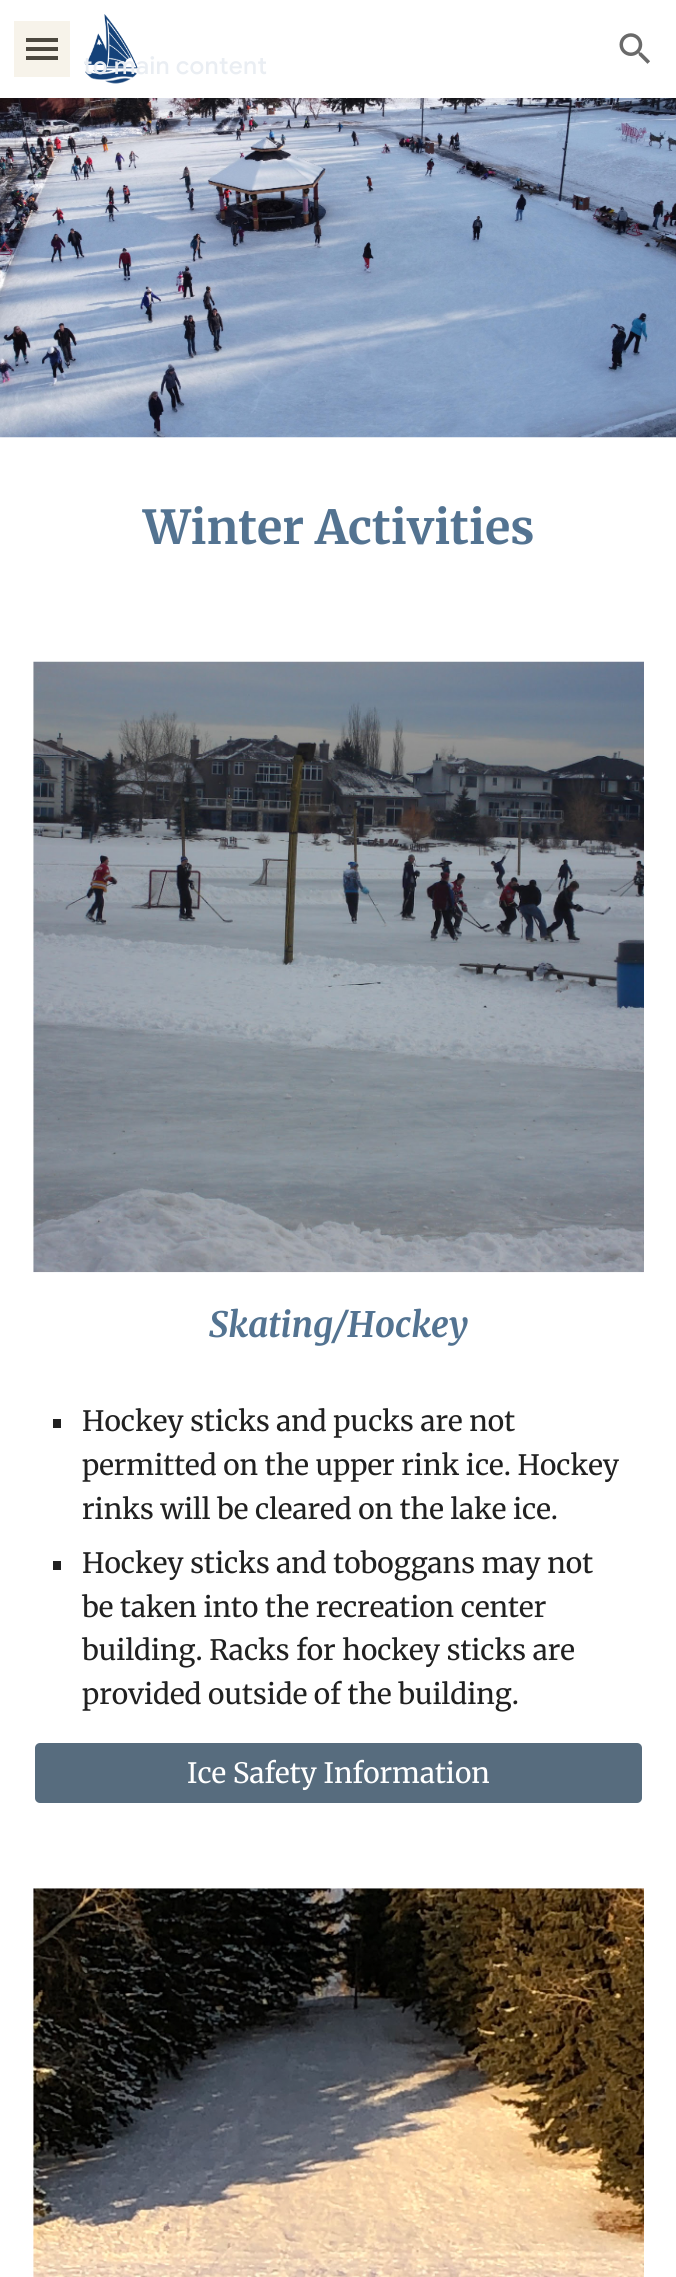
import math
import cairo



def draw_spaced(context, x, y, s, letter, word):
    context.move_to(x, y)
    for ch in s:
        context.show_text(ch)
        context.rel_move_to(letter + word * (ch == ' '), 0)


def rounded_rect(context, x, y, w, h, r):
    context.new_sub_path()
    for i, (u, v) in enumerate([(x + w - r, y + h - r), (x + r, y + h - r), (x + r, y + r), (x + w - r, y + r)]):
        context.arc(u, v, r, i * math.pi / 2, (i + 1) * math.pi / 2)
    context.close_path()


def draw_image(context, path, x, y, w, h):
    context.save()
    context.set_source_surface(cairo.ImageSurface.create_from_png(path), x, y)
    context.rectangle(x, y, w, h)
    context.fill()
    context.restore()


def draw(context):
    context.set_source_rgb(1, 1, 1)
    context.paint()
    context.set_source_rgb(61 / 255, 61 / 255, 61 / 255)
    context.rectangle(26, 38, 32, 4)
    context.fill()
    context.rectangle(26, 47, 32, 4)
    context.fill()
    context.rectangle(26, 56, 32, 4)
    context.fill()
    context.set_source_rgba(183 / 255, 153 / 255, 81 / 255, 0.12)
    context.rectangle(14, 21, 56, 56)
    context.fill()
    draw_image(context, "images/1.png", 85, 14, 53, 70)
    draw_image(context, "images/2.png", 619, 33, 31, 31)
    draw_image(context, "images/3.png", 0, 98, 676, 340)
    draw_image(context, "images/4.png", 33, 661, 611, 612)
    context.set_source_rgb(33 / 255, 33 / 255, 33 / 255)
    context.rectangle(53, 1419, 8, 9)
    context.fill()
    context.rectangle(53, 1561, 8, 9)
    context.fill()
    context.set_source_rgb(87 / 255, 108 / 255, 126 / 255)
    rounded_rect(context, 35, 1743, 607, 60, 5)
    context.fill()
    draw_image(context, "images/5.png", 33, 1888, 611, 389)
    context.select_font_face("Google Sans Medium")
    context.set_font_size(24.5)
    context.set_source_rgb(234 / 255, 238 / 255, 243 / 255)
    draw_spaced(context, 83, 74, "to main content", 0.25, 0)
    context.set_source_rgb(1, 1, 1)
    context.rectangle(83, 61, 1, 3)
    context.fill()
    context.select_font_face("Merriweather", cairo.FontSlant.NORMAL, cairo.FontWeight.BOLD)
    context.set_font_size(46.75)
    context.set_source_rgb(83 / 255, 115 / 255, 145 / 255)
    context.move_to(143, 544)
    context.show_text("Winter Activities")
    context.select_font_face("Merriweather", cairo.FontSlant.ITALIC, cairo.FontWeight.BOLD)
    context.set_font_size(35)
    context.move_to(209, 1337)
    context.show_text("Skating/Hockey")
    context.select_font_face("Merriweather")
    context.set_font_size(28)
    context.set_source_rgb(33 / 255, 33 / 255, 33 / 255)
    context.move_to(82, 1431)
    context.show_text("Hockey sticks and pucks are not")
    context.move_to(82, 1475)
    context.show_text("permitted on the upper rink ice. Hockey")
    context.move_to(82, 1519)
    context.show_text("rinks will be cleared on the lake ice.")
    context.move_to(82, 1573)
    context.show_text("Hockey sticks and toboggans may not")
    context.move_to(82, 1617)
    context.show_text("be taken into the recreation center")
    context.move_to(82, 1660)
    context.show_text("building. Racks for hockey sticks are")
    context.move_to(82, 1704)
    context.show_text("provided outside of the building.")
    context.set_source_rgb(1, 1, 1)
    context.move_to(187, 1783)
    context.show_text("Ice Safety Information")


surface = cairo.ImageSurface(cairo.Format.RGB24, 676, 2277)
context = cairo.Context(surface)
options = cairo.FontOptions()
options.set_hint_metrics(cairo.HintMetrics.OFF)
options.set_hint_style(cairo.HintStyle.NONE)
context.set_font_options(options)
context.set_miter_limit(4)
draw(context)
surface.write_to_png("out.png")
